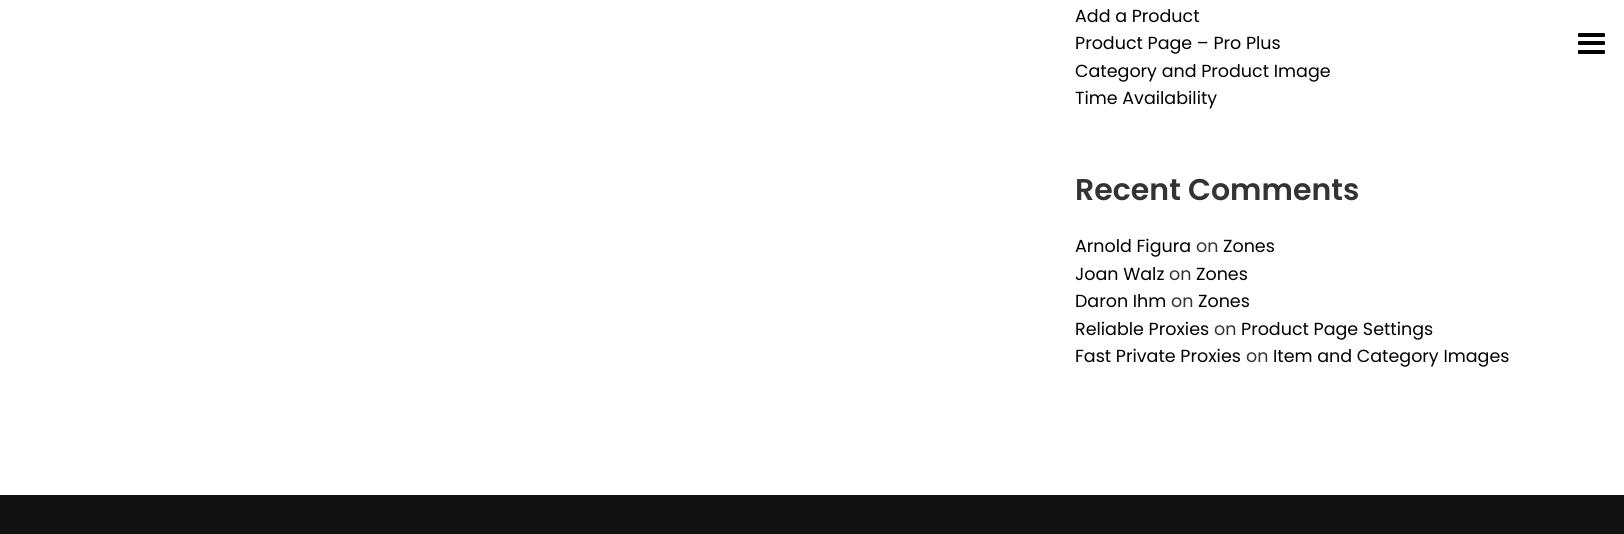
import math
import cairo



def rounded_rect(context, x, y, w, h, r):
    context.new_sub_path()
    for i, (u, v) in enumerate([(x + w - r, y + h - r), (x + r, y + h - r), (x + r, y + r), (x + w - r, y + r)]):
        context.arc(u, v, r, i * math.pi / 2, (i + 1) * math.pi / 2)
    context.close_path()


def draw(context):
    context.set_source_rgb(1, 1, 1)
    context.paint()
    context.set_source_rgb(0, 0, 0)
    rounded_rect(context, 1578, 33, 27, 4, 1)
    context.fill()
    rounded_rect(context, 1578, 41, 27, 4, 1)
    context.fill()
    rounded_rect(context, 1578, 50, 27, 4, 1)
    context.fill()
    context.set_source_rgb(17 / 255, 17 / 255, 17 / 255)
    context.rectangle(0, 495, 1624, 39)
    context.fill()
    context.select_font_face("Poppins")
    context.set_font_size(17.5)
    context.set_source_rgb(0, 0, 0)
    context.move_to(1075, 22)
    context.show_text("Add a Product")
    context.move_to(1075, 49)
    context.show_text("Product Page – Pro Plus")
    context.move_to(1075, 77)
    context.show_text("Category and Product Image")
    context.move_to(1075, 104)
    context.show_text("Time Availability")
    context.select_font_face("Poppins SemiBold")
    context.set_font_size(30)
    context.set_source_rgb(51 / 255, 51 / 255, 51 / 255)
    context.move_to(1075, 200)
    context.show_text("Recent Comments")
    context.select_font_face("Poppins")
    context.set_font_size(17.5)
    context.set_source_rgb(0, 0, 0)
    context.move_to(1075, 252)
    context.show_text("Arnold Figura")
    context.set_source_rgb(51 / 255, 51 / 255, 51 / 255)
    context.move_to(1196, 252)
    context.show_text("on")
    context.set_source_rgb(0, 0, 0)
    context.move_to(1223, 252)
    context.show_text("Zones")
    context.move_to(1075, 280)
    context.show_text("Joan Walz")
    context.set_source_rgb(51 / 255, 51 / 255, 51 / 255)
    context.move_to(1169, 280)
    context.show_text("on")
    context.set_source_rgb(0, 0, 0)
    context.move_to(1196, 280)
    context.show_text("Zones")
    context.move_to(1075, 307)
    context.show_text("Daron Ihm")
    context.set_source_rgb(51 / 255, 51 / 255, 51 / 255)
    context.move_to(1171, 307)
    context.show_text("on")
    context.set_source_rgb(0, 0, 0)
    context.move_to(1198, 307)
    context.show_text("Zones")
    context.move_to(1075, 335)
    context.show_text("Reliable Proxies")
    context.set_source_rgb(51 / 255, 51 / 255, 51 / 255)
    context.move_to(1214, 335)
    context.show_text("on")
    context.set_source_rgb(0, 0, 0)
    context.move_to(1241, 335)
    context.show_text("Product Page Settings")
    context.move_to(1075, 362)
    context.show_text("Fast Private Proxies")
    context.set_source_rgb(51 / 255, 51 / 255, 51 / 255)
    context.move_to(1246, 362)
    context.show_text("on")
    context.set_source_rgb(0, 0, 0)
    context.move_to(1273, 362)
    context.show_text("Item and Category Images")


surface = cairo.ImageSurface(cairo.Format.RGB24, 1624, 534)
context = cairo.Context(surface)
options = cairo.FontOptions()
options.set_hint_metrics(cairo.HintMetrics.OFF)
options.set_hint_style(cairo.HintStyle.NONE)
context.set_font_options(options)
context.set_miter_limit(4)
draw(context)
surface.write_to_png("out.png")
